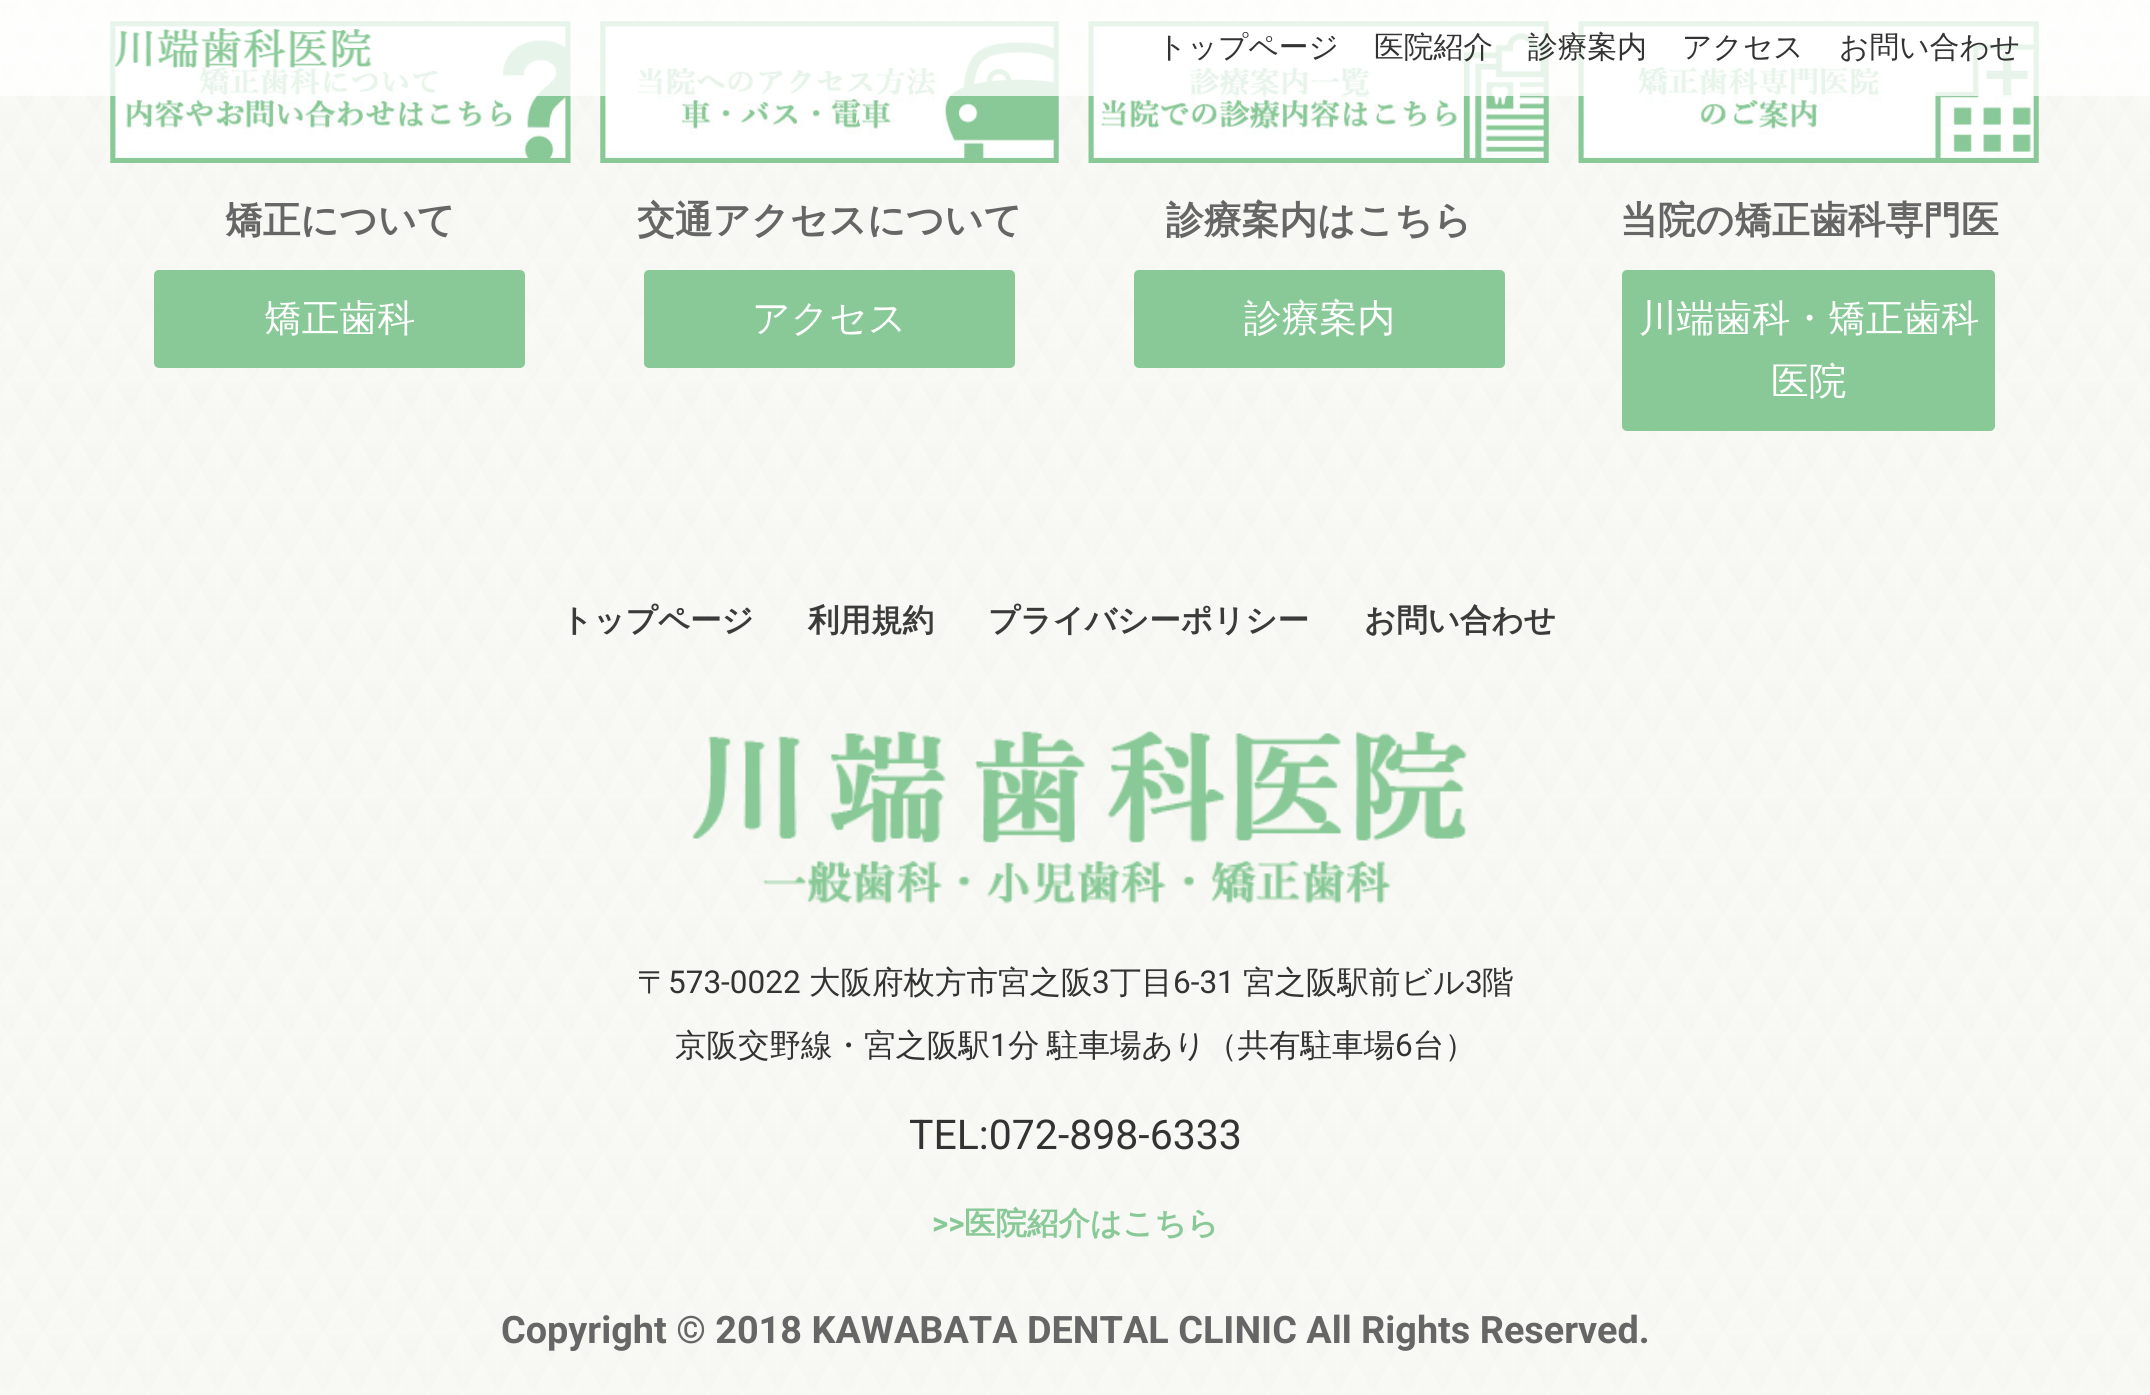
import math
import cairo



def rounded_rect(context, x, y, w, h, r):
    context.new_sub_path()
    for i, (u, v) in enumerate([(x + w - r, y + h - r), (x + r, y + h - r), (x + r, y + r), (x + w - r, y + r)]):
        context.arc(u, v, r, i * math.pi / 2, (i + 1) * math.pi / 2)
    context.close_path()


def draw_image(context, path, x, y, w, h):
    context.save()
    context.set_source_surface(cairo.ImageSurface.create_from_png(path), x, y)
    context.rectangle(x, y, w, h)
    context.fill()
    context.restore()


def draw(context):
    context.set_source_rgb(1, 1, 1)
    context.paint()
    draw_image(context, "images/1.png", 0, 0, 2150, 1395)
    draw_image(context, "images/3.png", 110, 21, 461, 142)
    draw_image(context, "images/4.png", 600, 21, 459, 142)
    draw_image(context, "images/5.png", 1088, 21, 461, 142)
    draw_image(context, "images/6.png", 1578, 21, 461, 142)
    context.set_source_rgba(1, 1, 1, 0.8)
    context.rectangle(0, 0, 2150, 96)
    context.fill()
    draw_image(context, "images/2.png", 113, 25, 259, 45)
    context.set_source_rgb(137 / 255, 201 / 255, 151 / 255)
    rounded_rect(context, 154, 270, 371, 98, 5)
    context.fill()
    rounded_rect(context, 644, 270, 371, 98, 5)
    context.fill()
    rounded_rect(context, 1134, 270, 371, 98, 5)
    context.fill()
    rounded_rect(context, 1622, 270, 373, 161, 5)
    context.fill()
    draw_image(context, "images/7.png", 692, 731, 775, 173)
    context.select_font_face("WenQuanYi Zen Hei Medium")
    context.set_font_size(29.75)
    context.set_source_rgb(51 / 255, 51 / 255, 51 / 255)
    context.move_to(1157, 57)
    context.show_text("トップページ")
    context.move_to(1374, 57)
    context.show_text("医院紹介")
    context.move_to(1528, 57)
    context.show_text("診療案内")
    context.move_to(1682, 57)
    context.show_text("アクセス")
    context.move_to(1839, 57)
    context.show_text("お問い合わせ")
    context.select_font_face("WenQuanYi Zen Hei", cairo.FontSlant.NORMAL, cairo.FontWeight.BOLD)
    context.set_font_size(37.8)
    context.set_source_rgb(102 / 255, 102 / 255, 102 / 255)
    context.move_to(225, 233)
    context.show_text("矯正について")
    context.select_font_face("WenQuanYi Zen Hei Medium")
    context.set_source_rgb(1, 1, 1)
    context.move_to(264, 331)
    context.show_text("矯正歯科")
    context.select_font_face("WenQuanYi Zen Hei", cairo.FontSlant.NORMAL, cairo.FontWeight.BOLD)
    context.set_source_rgb(102 / 255, 102 / 255, 102 / 255)
    context.move_to(637, 233)
    context.show_text("交通アクセスについて")
    context.select_font_face("WenQuanYi Zen Hei Medium")
    context.set_source_rgb(1, 1, 1)
    context.move_to(752, 331)
    context.show_text("アクセス")
    context.select_font_face("WenQuanYi Zen Hei", cairo.FontSlant.NORMAL, cairo.FontWeight.BOLD)
    context.set_source_rgb(102 / 255, 102 / 255, 102 / 255)
    context.move_to(1166, 233)
    context.show_text("診療案内はこちら")
    context.select_font_face("WenQuanYi Zen Hei Medium")
    context.set_source_rgb(1, 1, 1)
    context.move_to(1244, 331)
    context.show_text("診療案内")
    context.select_font_face("WenQuanYi Zen Hei", cairo.FontSlant.NORMAL, cairo.FontWeight.BOLD)
    context.set_source_rgb(102 / 255, 102 / 255, 102 / 255)
    context.move_to(1620, 233)
    context.show_text("当院の矯正歯科専門医")
    context.select_font_face("WenQuanYi Zen Hei Medium")
    context.set_source_rgb(1, 1, 1)
    context.move_to(1639, 331)
    context.show_text("川端歯科・矯正歯科")
    context.move_to(1771, 394)
    context.show_text("医院")
    context.select_font_face("WenQuanYi Zen Hei", cairo.FontSlant.NORMAL, cairo.FontWeight.BOLD)
    context.set_font_size(31.5)
    context.set_source_rgb(59 / 255, 59 / 255, 59 / 255)
    context.move_to(561, 631)
    context.show_text("トップページ")
    context.move_to(808, 631)
    context.show_text("利用規約")
    context.move_to(988, 631)
    context.show_text("プライバシーポリシー")
    context.move_to(1364, 631)
    context.show_text("お問い合わせ")
    context.select_font_face("WenQuanYi Zen Hei Medium")
    context.set_source_rgb(51 / 255, 51 / 255, 51 / 255)
    context.move_to(637, 993)
    context.show_text("〒")
    context.select_font_face("Roboto")
    context.move_to(668, 993)
    context.show_text("573-0022")
    context.select_font_face("WenQuanYi Zen Hei Medium")
    context.move_to(809, 993)
    context.show_text("大阪府枚方市宮之阪")
    context.select_font_face("Roboto")
    context.move_to(1092, 993)
    context.show_text("3")
    context.select_font_face("WenQuanYi Zen Hei Medium")
    context.move_to(1110, 993)
    context.show_text("丁目")
    context.select_font_face("Roboto")
    context.move_to(1173, 993)
    context.show_text("6-31")
    context.select_font_face("WenQuanYi Zen Hei Medium")
    context.move_to(1243, 993)
    context.show_text("宮之阪駅前ビル")
    context.select_font_face("Roboto")
    context.move_to(1465, 993)
    context.show_text("3")
    context.select_font_face("WenQuanYi Zen Hei Medium")
    context.move_to(1482, 993)
    context.show_text("階")
    context.move_to(675, 1056)
    context.show_text("京阪交野線・宮之阪駅")
    context.select_font_face("Roboto")
    context.move_to(990, 1056)
    context.show_text("1")
    context.select_font_face("WenQuanYi Zen Hei Medium")
    context.move_to(1008, 1056)
    context.show_text("分")
    context.move_to(1047, 1056)
    context.show_text("駐車場あり（共有駐車場")
    context.select_font_face("Roboto")
    context.move_to(1395, 1056)
    context.show_text("6")
    context.select_font_face("WenQuanYi Zen Hei Medium")
    context.move_to(1413, 1056)
    context.show_text("台）")
    context.select_font_face("Roboto")
    context.set_font_size(41)
    context.move_to(909, 1149)
    context.show_text("TEL:072-898-6333")
    context.select_font_face("Roboto", cairo.FontSlant.NORMAL, cairo.FontWeight.BOLD)
    context.set_font_size(31.5)
    context.set_source_rgb(137 / 255, 201 / 255, 151 / 255)
    context.move_to(932, 1234)
    context.show_text(">>")
    context.select_font_face("WenQuanYi Zen Hei", cairo.FontSlant.NORMAL, cairo.FontWeight.BOLD)
    context.move_to(964, 1234)
    context.show_text("医院紹介はこちら")
    context.select_font_face("Roboto", cairo.FontSlant.NORMAL, cairo.FontWeight.BOLD)
    context.set_font_size(37.8)
    context.set_source_rgb(102 / 255, 102 / 255, 102 / 255)
    context.move_to(501, 1343)
    context.show_text("Copyright © 2018 KAWABATA DENTAL CLINIC All Rights Reserved.")


surface = cairo.ImageSurface(cairo.Format.RGB24, 2150, 1395)
context = cairo.Context(surface)
options = cairo.FontOptions()
options.set_hint_metrics(cairo.HintMetrics.OFF)
options.set_hint_style(cairo.HintStyle.NONE)
context.set_font_options(options)
context.set_miter_limit(4)
draw(context)
surface.write_to_png("out.png")
